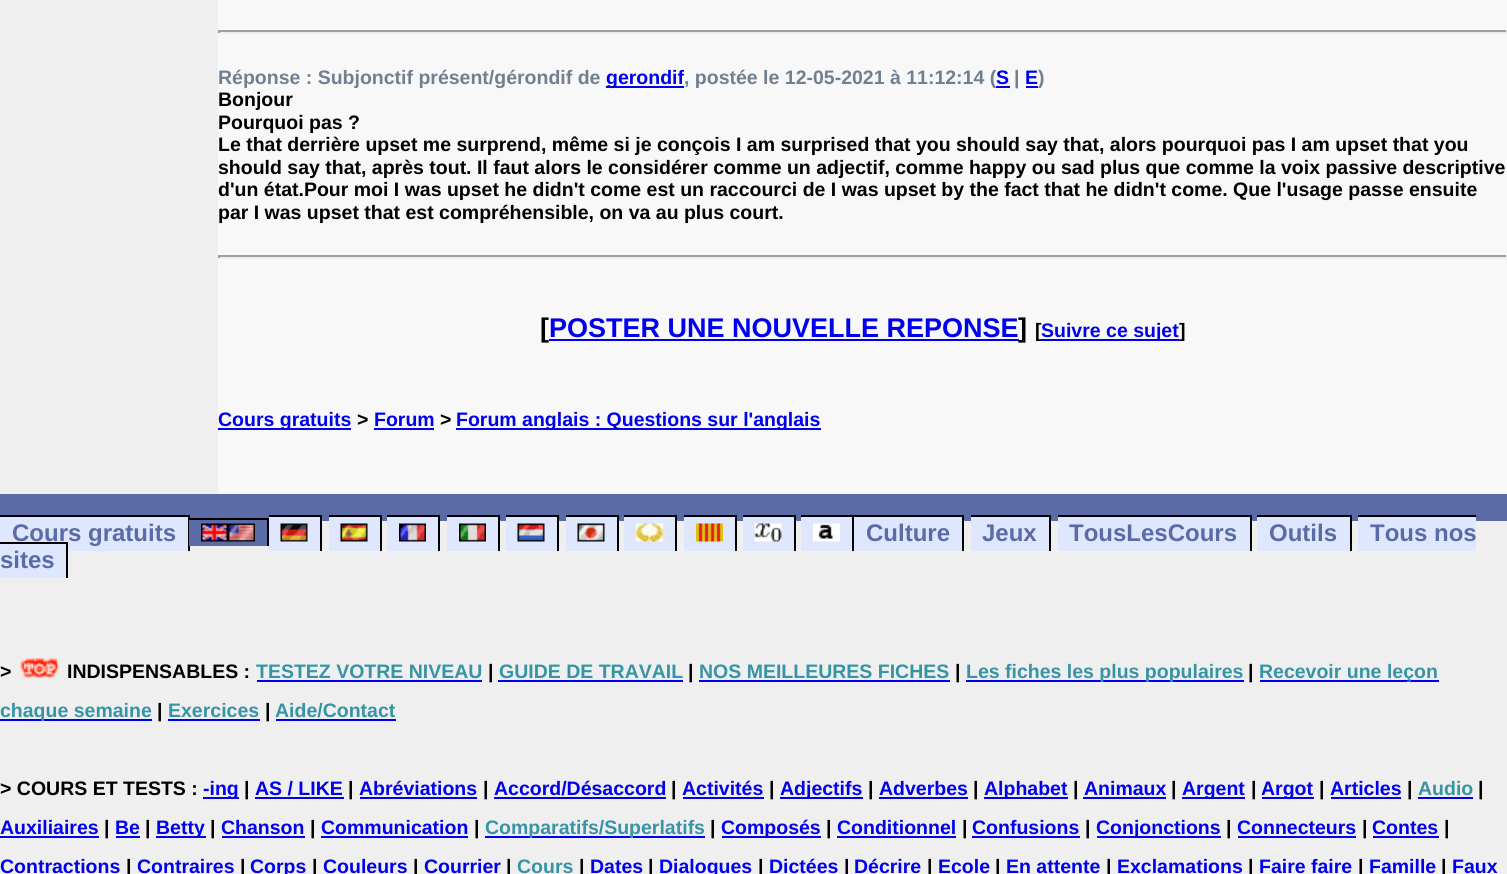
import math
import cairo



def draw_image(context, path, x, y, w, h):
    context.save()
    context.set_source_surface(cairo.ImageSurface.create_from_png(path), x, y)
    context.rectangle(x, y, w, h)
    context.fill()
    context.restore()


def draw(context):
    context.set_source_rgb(239 / 255, 239 / 255, 239 / 255)
    context.paint()
    context.set_source_rgb(248 / 255, 248 / 255, 248 / 255)
    context.rectangle(218, 0, 1289, 494)
    context.fill()
    context.set_source_rgb(159 / 255, 159 / 255, 159 / 255)
    context.rectangle(218, 30, 1289, 2)
    context.fill()
    context.set_source_rgb(238 / 255, 238 / 255, 238 / 255)
    context.rectangle(1506, 30, 1, 3)
    context.fill()
    context.rectangle(218, 32, 1289, 2)
    context.fill()
    context.set_source_rgb(159 / 255, 159 / 255, 159 / 255)
    context.rectangle(218, 30, 2, 3)
    context.fill()
    context.set_source_rgb(0, 0, 238 / 255)
    context.rectangle(606, 86, 78, 2)
    context.fill()
    context.rectangle(1026, 86, 12, 2)
    context.fill()
    context.set_source_rgb(159 / 255, 159 / 255, 159 / 255)
    context.rectangle(218, 255, 1289, 2)
    context.fill()
    context.set_source_rgb(238 / 255, 238 / 255, 238 / 255)
    context.rectangle(1506, 255, 1, 3)
    context.fill()
    context.rectangle(218, 257, 1289, 2)
    context.fill()
    context.set_source_rgb(159 / 255, 159 / 255, 159 / 255)
    context.rectangle(218, 255, 2, 3)
    context.fill()
    context.set_source_rgb(0, 0, 238 / 255)
    context.rectangle(549, 339, 470, 2)
    context.fill()
    context.rectangle(218, 428, 133, 2)
    context.fill()
    context.rectangle(374, 428, 60, 2)
    context.fill()
    context.rectangle(456, 428, 365, 2)
    context.fill()
    context.set_source_rgb(90 / 255, 107 / 255, 165 / 255)
    context.rectangle(0, 494, 1507, 27)
    context.fill()
    context.set_source_rgb(0, 0, 0)
    context.rectangle(269, 515, 52, 2)
    context.fill()
    context.rectangle(320, 515, 2, 36)
    context.fill()
    context.rectangle(329, 515, 52, 2)
    context.fill()
    context.rectangle(380, 515, 2, 36)
    context.fill()
    context.rectangle(387, 515, 53, 2)
    context.fill()
    context.rectangle(438, 515, 2, 36)
    context.fill()
    context.rectangle(447, 515, 53, 2)
    context.fill()
    context.rectangle(498, 515, 2, 36)
    context.fill()
    context.rectangle(506, 515, 52, 2)
    context.fill()
    context.rectangle(557, 515, 2, 36)
    context.fill()
    context.rectangle(566, 515, 52, 2)
    context.fill()
    context.rectangle(617, 515, 2, 36)
    context.fill()
    context.rectangle(624, 515, 53, 2)
    context.fill()
    context.rectangle(675, 515, 2, 36)
    context.fill()
    context.rectangle(684, 515, 53, 2)
    context.fill()
    context.rectangle(735, 515, 2, 36)
    context.fill()
    context.rectangle(743, 515, 52, 2)
    context.fill()
    context.rectangle(794, 515, 2, 36)
    context.fill()
    context.rectangle(801, 515, 162, 2)
    context.fill()
    context.rectangle(0, 515, 189, 2)
    context.fill()
    context.rectangle(188, 515, 2, 36)
    context.fill()
    context.rectangle(189, 518, 80, 2)
    context.fill()
    context.set_source_rgb(223 / 255, 231 / 255, 1)
    context.rectangle(269, 517, 51, 34)
    context.fill()
    context.rectangle(329, 517, 51, 34)
    context.fill()
    context.rectangle(387, 517, 51, 34)
    context.fill()
    context.rectangle(447, 517, 51, 34)
    context.fill()
    context.rectangle(506, 517, 51, 34)
    context.fill()
    context.rectangle(566, 517, 51, 34)
    context.fill()
    context.rectangle(624, 517, 51, 34)
    context.fill()
    context.rectangle(684, 517, 51, 34)
    context.fill()
    context.rectangle(743, 517, 51, 34)
    context.fill()
    context.rectangle(801, 517, 51, 34)
    context.fill()
    context.set_source_rgb(0, 0, 0)
    context.rectangle(852, 515, 2, 36)
    context.fill()
    context.set_source_rgb(223 / 255, 231 / 255, 1)
    context.rectangle(0, 517, 188, 34)
    context.fill()
    context.set_source_rgb(90 / 255, 107 / 255, 165 / 255)
    context.rectangle(189, 520, 39, 26)
    context.fill()
    context.rectangle(228, 521, 39, 25)
    context.fill()
    context.set_source_rgb(0, 0, 0)
    context.rectangle(267, 518, 2, 28)
    context.fill()
    draw_image(context, "images/1.png", 201, 523, 27, 19)
    draw_image(context, "images/2.png", 228, 523, 27, 19)
    draw_image(context, "images/3.png", 280, 523, 28, 19)
    draw_image(context, "images/4.png", 340, 523, 28, 19)
    draw_image(context, "images/5.png", 399, 523, 27, 19)
    draw_image(context, "images/6.png", 459, 523, 27, 19)
    draw_image(context, "images/7.png", 517, 523, 28, 19)
    draw_image(context, "images/8.png", 577, 523, 28, 19)
    draw_image(context, "images/9.png", 636, 523, 27, 19)
    draw_image(context, "images/10.png", 696, 523, 27, 19)
    draw_image(context, "images/11.png", 754, 523, 28, 19)
    draw_image(context, "images/12.png", 813, 523, 27, 19)
    context.set_source_rgb(223 / 255, 231 / 255, 1)
    context.rectangle(854, 517, 108, 34)
    context.fill()
    context.set_source_rgb(0, 0, 0)
    context.rectangle(962, 515, 2, 36)
    context.fill()
    context.set_source_rgb(223 / 255, 231 / 255, 1)
    context.rectangle(971, 517, 78, 34)
    context.fill()
    context.set_source_rgb(0, 0, 0)
    context.rectangle(971, 515, 79, 2)
    context.fill()
    context.rectangle(1049, 515, 2, 36)
    context.fill()
    context.set_source_rgb(223 / 255, 231 / 255, 1)
    context.rectangle(1058, 517, 192, 34)
    context.fill()
    context.set_source_rgb(0, 0, 0)
    context.rectangle(1058, 515, 193, 2)
    context.fill()
    context.rectangle(1250, 515, 2, 36)
    context.fill()
    context.set_source_rgb(223 / 255, 231 / 255, 1)
    context.rectangle(1257, 517, 93, 34)
    context.fill()
    context.set_source_rgb(0, 0, 0)
    context.rectangle(1257, 515, 95, 2)
    context.fill()
    context.rectangle(1350, 515, 2, 36)
    context.fill()
    context.set_source_rgb(223 / 255, 231 / 255, 1)
    context.rectangle(1358, 517, 118, 34)
    context.fill()
    context.set_source_rgb(0, 0, 0)
    context.rectangle(1358, 515, 118, 2)
    context.fill()
    context.set_source_rgb(223 / 255, 231 / 255, 1)
    context.rectangle(0, 551, 66, 27)
    context.fill()
    draw_image(context, "images/13.png", 19, 658, 40, 20)
    context.set_source_rgb(0, 0, 238 / 255)
    context.rectangle(257, 680, 225, 2)
    context.fill()
    context.rectangle(498, 680, 185, 2)
    context.fill()
    context.rectangle(699, 680, 251, 2)
    context.fill()
    context.rectangle(966, 680, 278, 2)
    context.fill()
    context.rectangle(1260, 680, 179, 2)
    context.fill()
    context.rectangle(0, 719, 152, 2)
    context.fill()
    context.rectangle(168, 719, 92, 2)
    context.fill()
    context.rectangle(276, 719, 120, 2)
    context.fill()
    context.rectangle(203, 797, 36, 2)
    context.fill()
    context.rectangle(255, 797, 89, 2)
    context.fill()
    context.rectangle(360, 797, 117, 2)
    context.fill()
    context.rectangle(494, 797, 172, 2)
    context.fill()
    context.rectangle(683, 797, 81, 2)
    context.fill()
    context.rectangle(780, 797, 83, 2)
    context.fill()
    context.rectangle(879, 797, 89, 2)
    context.fill()
    context.rectangle(984, 797, 84, 2)
    context.fill()
    context.rectangle(1083, 797, 83, 2)
    context.fill()
    context.rectangle(1182, 797, 63, 2)
    context.fill()
    context.rectangle(1262, 797, 52, 2)
    context.fill()
    context.rectangle(1331, 797, 70, 2)
    context.fill()
    context.rectangle(1418, 797, 55, 2)
    context.fill()
    context.rectangle(0, 836, 99, 2)
    context.fill()
    context.rectangle(116, 836, 24, 2)
    context.fill()
    context.rectangle(156, 836, 50, 2)
    context.fill()
    context.rectangle(222, 836, 83, 2)
    context.fill()
    context.rectangle(321, 836, 147, 2)
    context.fill()
    context.rectangle(485, 836, 220, 2)
    context.fill()
    context.rectangle(722, 836, 99, 2)
    context.fill()
    context.rectangle(837, 836, 119, 2)
    context.fill()
    context.rectangle(972, 836, 108, 2)
    context.fill()
    context.rectangle(1097, 836, 124, 2)
    context.fill()
    context.rectangle(1238, 836, 118, 2)
    context.fill()
    context.rectangle(1373, 836, 66, 2)
    context.fill()
    context.select_font_face("Liberation Sans", cairo.FontSlant.NORMAL, cairo.FontWeight.BOLD)
    context.set_font_size(19.5)
    context.set_source_rgb(112 / 255, 128 / 255, 144 / 255)
    context.move_to(218, 84)
    context.show_text("Réponse : Subjonctif présent/gérondif de")
    context.set_source_rgb(0, 0, 238 / 255)
    context.move_to(606, 84)
    context.show_text("gerondif")
    context.set_source_rgb(112 / 255, 128 / 255, 144 / 255)
    context.move_to(684, 84)
    context.show_text(", postée le 12-05-2021 à 11:12:14 (")
    context.set_source_rgb(0, 0, 238 / 255)
    context.rectangle(996, 86, 14, 2)
    context.fill()
    context.move_to(996, 84)
    context.show_text("S")
    context.set_source_rgb(112 / 255, 128 / 255, 144 / 255)
    context.move_to(1014, 84)
    context.show_text("|")
    context.set_source_rgb(0, 0, 238 / 255)
    context.move_to(1025, 84)
    context.show_text("E")
    context.set_source_rgb(112 / 255, 128 / 255, 144 / 255)
    context.move_to(1038, 84)
    context.show_text(")")
    context.set_source_rgb(0, 0, 0)
    context.move_to(218, 106)
    context.show_text("Bonjour")
    context.move_to(218, 129)
    context.show_text("Pourquoi pas ?")
    context.move_to(218, 151)
    context.show_text("Le that derrière upset me surprend, même si je conçois I am surprised that you should say that, alors pourquoi pas I am upset that you")
    context.move_to(218, 174)
    context.show_text("should say that, après tout. Il faut alors le considérer comme un adjectif, comme happy ou sad plus que comme la voix passive descriptive")
    context.move_to(218, 196)
    context.show_text("d'un état.Pour moi I was upset he didn't come est un raccourci de I was upset by the fact that he didn't come. Que l'usage passe ensuite")
    context.move_to(218, 219)
    context.show_text("par I was upset that est compréhensible, on va au plus court.")
    context.set_font_size(27)
    context.move_to(540, 337)
    context.show_text("[")
    context.set_source_rgb(0, 0, 238 / 255)
    context.move_to(549, 337)
    context.show_text("POSTER UNE NOUVELLE REPONSE")
    context.set_source_rgb(0, 0, 0)
    context.move_to(1018, 337)
    context.show_text("]")
    context.set_font_size(19.5)
    context.move_to(1035, 337)
    context.show_text("[")
    context.set_source_rgb(0, 0, 238 / 255)
    context.rectangle(1041, 339, 138, 2)
    context.fill()
    context.move_to(1041, 337)
    context.show_text("Suivre ce sujet")
    context.set_source_rgb(0, 0, 0)
    context.move_to(1179, 337)
    context.show_text("]")
    context.set_source_rgb(0, 0, 238 / 255)
    context.move_to(218, 426)
    context.show_text("Cours gratuits")
    context.set_source_rgb(0, 0, 0)
    context.move_to(357, 426)
    context.show_text(">")
    context.set_source_rgb(0, 0, 238 / 255)
    context.move_to(374, 426)
    context.show_text("Forum")
    context.set_source_rgb(0, 0, 0)
    context.move_to(440, 426)
    context.show_text(">")
    context.set_source_rgb(0, 0, 238 / 255)
    context.move_to(456, 426)
    context.show_text("Forum anglais : Questions sur l'anglais")
    context.set_font_size(24)
    context.set_source_rgb(90 / 255, 107 / 255, 165 / 255)
    context.move_to(12, 541)
    context.show_text("Cours gratuits")
    context.move_to(866, 541)
    context.show_text("Culture")
    context.move_to(982, 541)
    context.show_text("Jeux")
    context.move_to(1069, 541)
    context.show_text("TousLesCours")
    context.move_to(1269, 541)
    context.show_text("Outils")
    context.move_to(1370, 541)
    context.show_text("Tous nos")
    context.move_to(0, 568)
    context.show_text("sites")
    context.set_source_rgb(0, 0, 0)
    context.rectangle(0, 542, 68, 2)
    context.fill()
    context.rectangle(66, 542, 2, 36)
    context.fill()
    context.set_font_size(19.5)
    context.move_to(0, 678)
    context.show_text(">")
    context.move_to(67, 678)
    context.show_text("INDISPENSABLES :")
    context.set_source_rgb(53 / 255, 148 / 255, 165 / 255)
    context.move_to(256, 678)
    context.show_text("TESTEZ VOTRE NIVEAU")
    context.set_source_rgb(0, 0, 0)
    context.move_to(488, 678)
    context.show_text("|")
    context.set_source_rgb(53 / 255, 148 / 255, 165 / 255)
    context.move_to(499, 678)
    context.show_text("GUIDE DE TRAVAIL")
    context.set_source_rgb(0, 0, 0)
    context.move_to(688, 678)
    context.show_text("|")
    context.set_source_rgb(53 / 255, 148 / 255, 165 / 255)
    context.move_to(699, 678)
    context.show_text("NOS MEILLEURES FICHES")
    context.set_source_rgb(0, 0, 0)
    context.move_to(955, 678)
    context.show_text("|")
    context.set_source_rgb(53 / 255, 148 / 255, 165 / 255)
    context.move_to(966, 678)
    context.show_text("Les fiches les plus populaires")
    context.set_source_rgb(0, 0, 0)
    context.move_to(1248, 678)
    context.show_text("|")
    context.set_source_rgb(53 / 255, 148 / 255, 165 / 255)
    context.move_to(1259, 678)
    context.show_text("Recevoir une leçon")
    context.move_to(0, 717)
    context.show_text("chaque semaine")
    context.set_source_rgb(0, 0, 0)
    context.move_to(157, 717)
    context.show_text("|")
    context.set_source_rgb(53 / 255, 148 / 255, 165 / 255)
    context.move_to(168, 717)
    context.show_text("Exercices")
    context.set_source_rgb(0, 0, 0)
    context.move_to(265, 717)
    context.show_text("|")
    context.set_source_rgb(53 / 255, 148 / 255, 165 / 255)
    context.move_to(275, 717)
    context.show_text("Aide/Contact")
    context.set_source_rgb(0, 0, 0)
    context.move_to(0, 795)
    context.show_text("> COURS ET TESTS :")
    context.set_source_rgb(0, 0, 238 / 255)
    context.move_to(203, 795)
    context.show_text("-ing")
    context.set_source_rgb(0, 0, 0)
    context.move_to(244, 795)
    context.show_text("|")
    context.set_source_rgb(0, 0, 238 / 255)
    context.move_to(255, 795)
    context.show_text("AS / LIKE")
    context.set_source_rgb(0, 0, 0)
    context.move_to(348, 795)
    context.show_text("|")
    context.set_source_rgb(0, 0, 238 / 255)
    context.move_to(359, 795)
    context.show_text("Abréviations")
    context.set_source_rgb(0, 0, 0)
    context.move_to(483, 795)
    context.show_text("|")
    context.set_source_rgb(0, 0, 238 / 255)
    context.move_to(494, 795)
    context.show_text("Accord/Désaccord")
    context.set_source_rgb(0, 0, 0)
    context.move_to(671, 795)
    context.show_text("|")
    context.set_source_rgb(0, 0, 238 / 255)
    context.move_to(682, 795)
    context.show_text("Activités")
    context.set_source_rgb(0, 0, 0)
    context.move_to(769, 795)
    context.show_text("|")
    context.set_source_rgb(0, 0, 238 / 255)
    context.move_to(780, 795)
    context.show_text("Adjectifs")
    context.set_source_rgb(0, 0, 0)
    context.move_to(868, 795)
    context.show_text("|")
    context.set_source_rgb(0, 0, 238 / 255)
    context.move_to(879, 795)
    context.show_text("Adverbes")
    context.set_source_rgb(0, 0, 0)
    context.move_to(973, 795)
    context.show_text("|")
    context.set_source_rgb(0, 0, 238 / 255)
    context.move_to(984, 795)
    context.show_text("Alphabet")
    context.set_source_rgb(0, 0, 0)
    context.move_to(1073, 795)
    context.show_text("|")
    context.set_source_rgb(0, 0, 238 / 255)
    context.move_to(1084, 795)
    context.show_text("Animaux")
    context.set_source_rgb(0, 0, 0)
    context.move_to(1171, 795)
    context.show_text("|")
    context.set_source_rgb(0, 0, 238 / 255)
    context.move_to(1182, 795)
    context.show_text("Argent")
    context.set_source_rgb(0, 0, 0)
    context.move_to(1251, 795)
    context.show_text("|")
    context.set_source_rgb(0, 0, 238 / 255)
    context.move_to(1261, 795)
    context.show_text("Argot")
    context.set_source_rgb(0, 0, 0)
    context.move_to(1319, 795)
    context.show_text("|")
    context.set_source_rgb(0, 0, 238 / 255)
    context.move_to(1330, 795)
    context.show_text("Articles")
    context.set_source_rgb(0, 0, 0)
    context.move_to(1407, 795)
    context.show_text("|")
    context.set_source_rgb(53 / 255, 148 / 255, 165 / 255)
    context.move_to(1418, 795)
    context.show_text("Audio")
    context.set_source_rgb(0, 0, 0)
    context.move_to(1478, 795)
    context.show_text("|")
    context.set_source_rgb(0, 0, 238 / 255)
    context.move_to(0, 834)
    context.show_text("Auxiliaires")
    context.set_source_rgb(0, 0, 0)
    context.move_to(104, 834)
    context.show_text("|")
    context.set_source_rgb(0, 0, 238 / 255)
    context.move_to(115, 834)
    context.show_text("Be")
    context.set_source_rgb(0, 0, 0)
    context.move_to(145, 834)
    context.show_text("|")
    context.set_source_rgb(0, 0, 238 / 255)
    context.move_to(156, 834)
    context.show_text("Betty")
    context.set_source_rgb(0, 0, 0)
    context.move_to(210, 834)
    context.show_text("|")
    context.set_source_rgb(0, 0, 238 / 255)
    context.move_to(221, 834)
    context.show_text("Chanson")
    context.set_source_rgb(0, 0, 0)
    context.move_to(310, 834)
    context.show_text("|")
    context.set_source_rgb(0, 0, 238 / 255)
    context.move_to(321, 834)
    context.show_text("Communication")
    context.set_source_rgb(0, 0, 0)
    context.move_to(474, 834)
    context.show_text("|")
    context.set_source_rgb(53 / 255, 148 / 255, 165 / 255)
    context.move_to(485, 834)
    context.show_text("Comparatifs/Superlatifs")
    context.set_source_rgb(0, 0, 0)
    context.move_to(710, 834)
    context.show_text("|")
    context.set_source_rgb(0, 0, 238 / 255)
    context.move_to(721, 834)
    context.show_text("Composés")
    context.set_source_rgb(0, 0, 0)
    context.move_to(826, 834)
    context.show_text("|")
    context.set_source_rgb(0, 0, 238 / 255)
    context.move_to(837, 834)
    context.show_text("Conditionnel")
    context.set_source_rgb(0, 0, 0)
    context.move_to(962, 834)
    context.show_text("|")
    context.set_source_rgb(0, 0, 238 / 255)
    context.move_to(972, 834)
    context.show_text("Confusions")
    context.set_source_rgb(0, 0, 0)
    context.move_to(1085, 834)
    context.show_text("|")
    context.set_source_rgb(0, 0, 238 / 255)
    context.move_to(1096, 834)
    context.show_text("Conjonctions")
    context.set_source_rgb(0, 0, 0)
    context.move_to(1226, 834)
    context.show_text("|")
    context.set_source_rgb(0, 0, 238 / 255)
    context.move_to(1237, 834)
    context.show_text("Connecteurs")
    context.set_source_rgb(0, 0, 0)
    context.move_to(1362, 834)
    context.show_text("|")
    context.set_source_rgb(0, 0, 238 / 255)
    context.move_to(1372, 834)
    context.show_text("Contes")
    context.set_source_rgb(0, 0, 0)
    context.move_to(1444, 834)
    context.show_text("|")
    context.set_source_rgb(0, 0, 238 / 255)
    context.move_to(0, 873)
    context.show_text("Contractions")
    context.set_source_rgb(0, 0, 0)
    context.move_to(126, 873)
    context.show_text("|")
    context.set_source_rgb(0, 0, 238 / 255)
    context.move_to(137, 873)
    context.show_text("Contraires")
    context.set_source_rgb(0, 0, 0)
    context.move_to(240, 873)
    context.show_text("|")
    context.set_source_rgb(0, 0, 238 / 255)
    context.move_to(250, 873)
    context.show_text("Corps")
    context.set_source_rgb(0, 0, 0)
    context.move_to(312, 873)
    context.show_text("|")
    context.set_source_rgb(0, 0, 238 / 255)
    context.move_to(323, 873)
    context.show_text("Couleurs")
    context.set_source_rgb(0, 0, 0)
    context.move_to(413, 873)
    context.show_text("|")
    context.set_source_rgb(0, 0, 238 / 255)
    context.move_to(424, 873)
    context.show_text("Courrier")
    context.set_source_rgb(0, 0, 0)
    context.move_to(506, 873)
    context.show_text("|")
    context.set_source_rgb(53 / 255, 148 / 255, 165 / 255)
    context.move_to(517, 873)
    context.show_text("Cours")
    context.set_source_rgb(0, 0, 0)
    context.move_to(579, 873)
    context.show_text("|")
    context.set_source_rgb(0, 0, 238 / 255)
    context.move_to(590, 873)
    context.show_text("Dates")
    context.set_source_rgb(0, 0, 0)
    context.move_to(648, 873)
    context.show_text("|")
    context.set_source_rgb(0, 0, 238 / 255)
    context.move_to(659, 873)
    context.show_text("Dialogues")
    context.set_source_rgb(0, 0, 0)
    context.move_to(758, 873)
    context.show_text("|")
    context.set_source_rgb(0, 0, 238 / 255)
    context.move_to(769, 873)
    context.show_text("Dictées")
    context.set_source_rgb(0, 0, 0)
    context.move_to(844, 873)
    context.show_text("|")
    context.set_source_rgb(0, 0, 238 / 255)
    context.move_to(854, 873)
    context.show_text("Décrire")
    context.set_source_rgb(0, 0, 0)
    context.move_to(927, 873)
    context.show_text("|")
    context.set_source_rgb(0, 0, 238 / 255)
    context.move_to(938, 873)
    context.show_text("Ecole")
    context.set_source_rgb(0, 0, 0)
    context.move_to(995, 873)
    context.show_text("|")
    context.set_source_rgb(0, 0, 238 / 255)
    context.move_to(1006, 873)
    context.show_text("En attente")
    context.set_source_rgb(0, 0, 0)
    context.move_to(1106, 873)
    context.show_text("|")
    context.set_source_rgb(0, 0, 238 / 255)
    context.move_to(1117, 873)
    context.show_text("Exclamations")
    context.set_source_rgb(0, 0, 0)
    context.move_to(1248, 873)
    context.show_text("|")
    context.set_source_rgb(0, 0, 238 / 255)
    context.move_to(1259, 873)
    context.show_text("Faire faire")
    context.set_source_rgb(0, 0, 0)
    context.move_to(1358, 873)
    context.show_text("|")
    context.set_source_rgb(0, 0, 238 / 255)
    context.move_to(1369, 873)
    context.show_text("Famille")
    context.set_source_rgb(0, 0, 0)
    context.move_to(1441, 873)
    context.show_text("|")
    context.set_source_rgb(0, 0, 238 / 255)
    context.move_to(1452, 873)
    context.show_text("Faux")


surface = cairo.ImageSurface(cairo.Format.RGB24, 1507, 874)
context = cairo.Context(surface)
options = cairo.FontOptions()
options.set_hint_metrics(cairo.HintMetrics.OFF)
options.set_hint_style(cairo.HintStyle.NONE)
context.set_font_options(options)
context.set_miter_limit(4)
draw(context)
surface.write_to_png("out.png")
